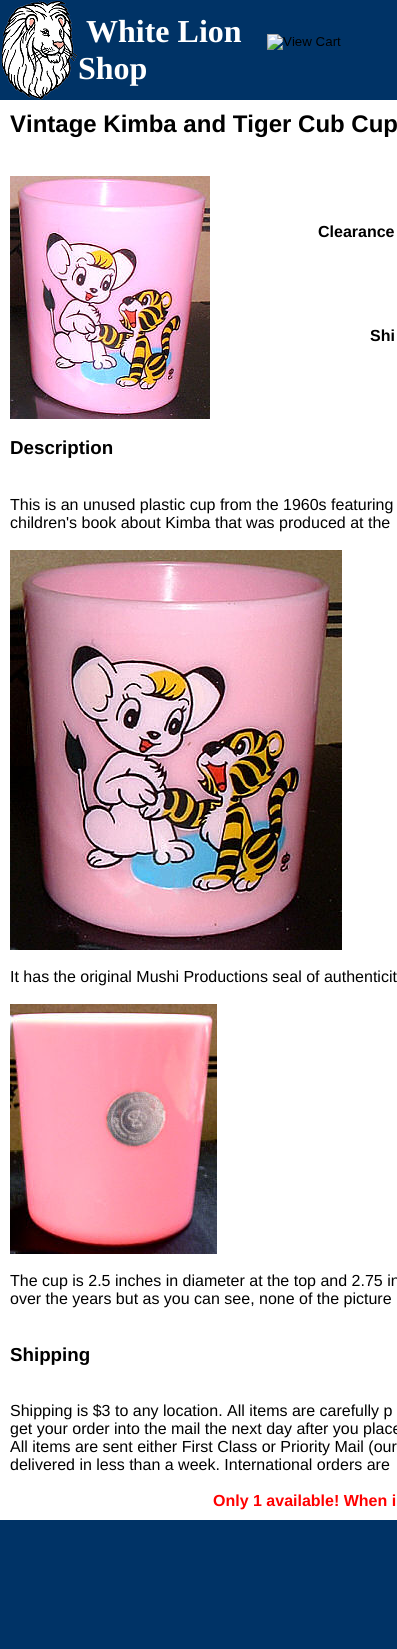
import math
import cairo



def draw_image(context, path, x, y, w, h):
    context.save()
    context.set_source_surface(cairo.ImageSurface.create_from_png(path), x, y)
    context.rectangle(x, y, w, h)
    context.fill()
    context.restore()


def draw(context):
    context.set_source_rgb(0, 51 / 255, 102 / 255)
    context.paint()
    draw_image(context, "images/1.png", 1, 0, 77, 100)
    draw_image(context, "images/2.png", 267, 34, 74, 16)
    context.set_source_rgb(1, 1, 1)
    context.rectangle(0, 100, 397, 1420)
    context.fill()
    draw_image(context, "images/3.png", 10, 176, 200, 243)
    draw_image(context, "images/4.png", 10, 550, 332, 400)
    draw_image(context, "images/5.png", 10, 1004, 207, 250)
    context.select_font_face("Liberation Serif", cairo.FontSlant.NORMAL, cairo.FontWeight.BOLD)
    context.set_font_size(32)
    context.move_to(86, 42)
    context.show_text("White Lion")
    context.move_to(78, 79)
    context.show_text("Shop")
    context.select_font_face("Liberation Sans", cairo.FontSlant.NORMAL, cairo.FontWeight.BOLD)
    context.set_font_size(24)
    context.set_source_rgb(0, 0, 0)
    context.move_to(10, 132)
    context.show_text("Vintage Kimba and Tiger Cub Cup")
    context.set_font_size(16)
    context.move_to(318, 237)
    context.show_text("Clearance")
    context.move_to(370, 341)
    context.show_text("Shi")
    context.set_font_size(18.75)
    context.move_to(10, 454)
    context.show_text("Description")
    context.select_font_face("Liberation Sans")
    context.set_font_size(16)
    context.move_to(10, 510)
    context.show_text("This is an unused plastic cup from the 1960s featuring")
    context.move_to(10, 528)
    context.show_text("children's book about Kimba that was produced at the")
    context.move_to(10, 982)
    context.show_text("It has the original Mushi Productions seal of authenticit")
    context.move_to(10, 1286)
    context.show_text("The cup is 2.5 inches in diameter at the top and 2.75 in")
    context.move_to(10, 1304)
    context.show_text("over the years but as you can see, none of the picture")
    context.select_font_face("Liberation Sans", cairo.FontSlant.NORMAL, cairo.FontWeight.BOLD)
    context.set_font_size(18.75)
    context.move_to(10, 1361)
    context.show_text("Shipping")
    context.select_font_face("Liberation Sans")
    context.set_font_size(16)
    context.move_to(10, 1416)
    context.show_text("Shipping is $3 to any location. All items are carefully p")
    context.move_to(10, 1434)
    context.show_text("get your order into the mail the next day after you place")
    context.move_to(10, 1452)
    context.show_text("All items are sent either First Class or Priority Mail (our")
    context.move_to(10, 1470)
    context.show_text("delivered in less than a week. International orders are")
    context.select_font_face("Liberation Sans", cairo.FontSlant.NORMAL, cairo.FontWeight.BOLD)
    context.set_source_rgb(1, 0, 0)
    context.move_to(213, 1506)
    context.show_text("Only 1 available! When i")


surface = cairo.ImageSurface(cairo.Format.RGB24, 397, 1649)
context = cairo.Context(surface)
options = cairo.FontOptions()
options.set_hint_metrics(cairo.HintMetrics.OFF)
options.set_hint_style(cairo.HintStyle.NONE)
context.set_font_options(options)
context.set_miter_limit(4)
draw(context)
surface.write_to_png("out.png")
